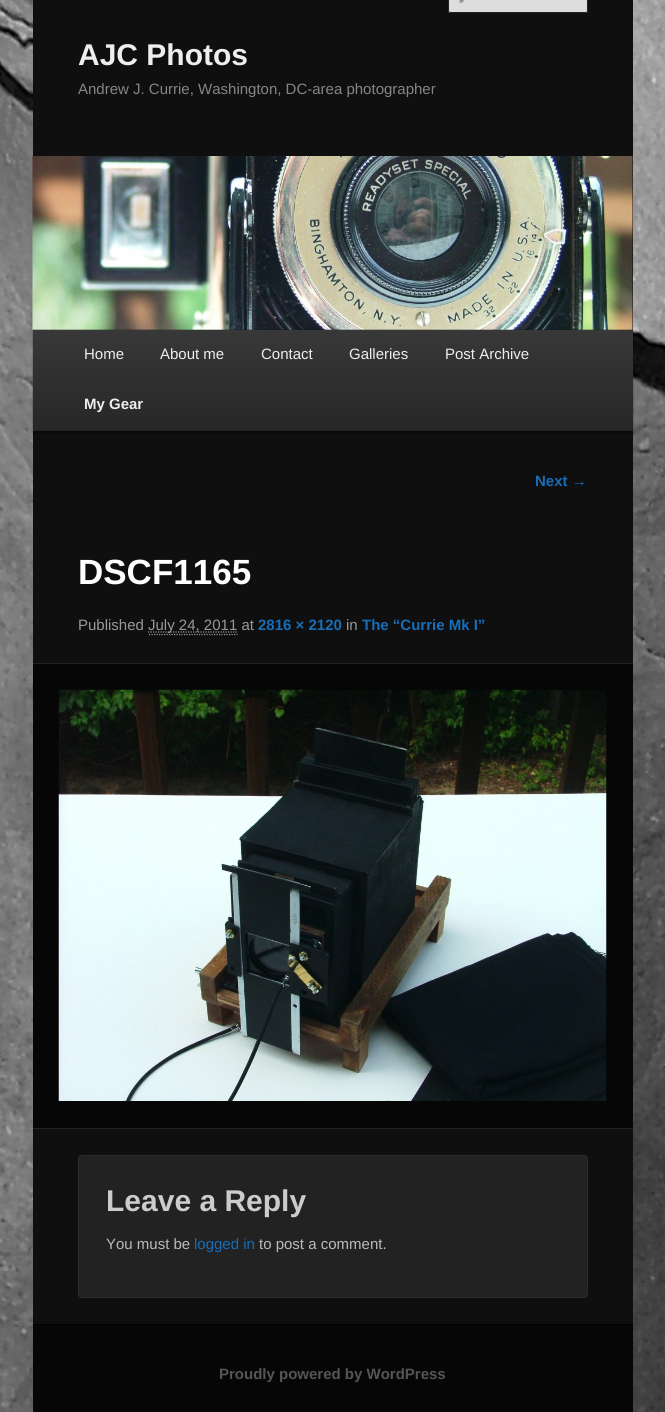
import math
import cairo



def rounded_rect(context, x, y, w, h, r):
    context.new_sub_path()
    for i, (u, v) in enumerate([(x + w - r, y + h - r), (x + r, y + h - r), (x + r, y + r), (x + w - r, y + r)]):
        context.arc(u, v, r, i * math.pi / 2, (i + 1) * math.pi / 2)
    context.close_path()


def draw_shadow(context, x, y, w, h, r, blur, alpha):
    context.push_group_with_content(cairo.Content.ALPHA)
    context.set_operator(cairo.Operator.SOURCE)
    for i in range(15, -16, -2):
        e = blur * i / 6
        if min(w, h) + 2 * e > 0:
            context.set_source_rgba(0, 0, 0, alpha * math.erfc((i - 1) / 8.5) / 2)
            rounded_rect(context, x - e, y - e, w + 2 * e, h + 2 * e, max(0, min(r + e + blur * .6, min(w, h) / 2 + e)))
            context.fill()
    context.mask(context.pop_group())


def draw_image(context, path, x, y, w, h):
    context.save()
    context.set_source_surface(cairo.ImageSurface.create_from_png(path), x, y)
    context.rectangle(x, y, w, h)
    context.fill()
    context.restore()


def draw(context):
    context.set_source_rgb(1, 1, 1)
    context.paint()
    draw_image(context, "images/1.png", 0, 0, 665, 1412)
    context.set_source_rgb(15 / 255, 15 / 255, 15 / 255)
    context.rectangle(33, 0, 600, 1324)
    context.fill()
    context.set_source_rgb(221 / 255, 221 / 255, 221 / 255)
    rounded_rect(context, 448, -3, 140, 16, 2.5)
    context.fill()
    draw_image(context, "images/2.png", 458, 0, 6, 4)
    rounded_rect(context, 448.5, -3.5, 139, 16, 2)
    context.set_source_rgb(34 / 255, 34 / 255, 34 / 255)
    context.set_line_width(1)
    context.stroke()
    context.set_source_rgb(0, 0, 0)
    draw_shadow(context, 33, 331, 600, 102, 0, 1, 0.4)
    draw_image(context, "images/3.png", 32, 156, 601, 174)
    gradient = cairo.LinearGradient(333, 330, 333, 430)
    gradient.add_color_stop_rgba(0, 56 / 255, 56 / 255, 56 / 255, 1)
    gradient.add_color_stop_rgba(1, 39 / 255, 39 / 255, 39 / 255, 1)
    context.set_source(gradient)
    context.rectangle(33, 330, 600, 100)
    context.fill()
    context.set_source_rgb(34 / 255, 34 / 255, 34 / 255)
    context.rectangle(33, 430, 600, 1)
    context.fill()
    context.new_path()
    context.move_to(149, 634.5)
    context.line_to(237.5, 634.5)
    context.set_source_rgb(153 / 255, 153 / 255, 153 / 255)
    context.set_line_width(1.2)
    context.set_dash([1.25, 1.25])
    context.stroke()
    context.new_path()
    context.move_to(148, 632)
    context.line_to(237.5, 632)
    context.stroke()
    context.set_source_rgb(6 / 255, 6 / 255, 6 / 255)
    context.rectangle(33, 664, 600, 464)
    context.fill()
    context.set_source_rgb(34 / 255, 34 / 255, 34 / 255)
    context.rectangle(33, 663, 600, 1)
    context.fill()
    context.rectangle(33, 1128, 600, 1)
    context.fill()
    draw_image(context, "images/4.png", 58, 689, 549, 412)
    rounded_rect(context, 78.5, 1155.5, 509, 142, 3.5)
    context.fill_preserve()
    context.set_source_rgb(44 / 255, 44 / 255, 44 / 255)
    context.set_line_width(1)
    context.set_dash([])
    context.stroke()
    context.set_source_rgb(6 / 255, 6 / 255, 6 / 255)
    context.rectangle(33, 1325, 600, 87)
    context.fill()
    context.set_source_rgb(0, 0, 0)
    context.rectangle(33, 1324, 600, 1)
    context.fill()
    context.select_font_face("Liberation Sans", cairo.FontSlant.NORMAL, cairo.FontWeight.BOLD)
    context.set_font_size(30)
    context.set_source_rgb(238 / 255, 238 / 255, 238 / 255)
    context.move_to(78, 65)
    context.show_text("AJC Photos")
    context.select_font_face("Liberation Sans")
    context.set_font_size(15)
    context.set_source_rgb(133 / 255, 133 / 255, 133 / 255)
    context.move_to(78, 94)
    context.show_text("Andrew J. Currie, Washington, DC-area photographer")
    context.set_source_rgb(238 / 255, 238 / 255, 238 / 255)
    context.move_to(84, 359)
    context.show_text("Home")
    context.move_to(160, 359)
    context.show_text("About me")
    context.move_to(261, 359)
    context.show_text("Contact")
    context.move_to(349, 359)
    context.show_text("Galleries")
    context.move_to(445, 359)
    context.show_text("Post Archive")
    context.select_font_face("Liberation Sans", cairo.FontSlant.NORMAL, cairo.FontWeight.BOLD)
    context.move_to(84, 409)
    context.show_text("My Gear")
    context.set_source_rgb(23 / 255, 109 / 255, 183 / 255)
    context.move_to(535, 486)
    context.show_text("Next →")
    context.set_font_size(35)
    context.set_source_rgb(1, 1, 1)
    context.move_to(78, 584)
    context.show_text("DSCF1165")
    context.select_font_face("Liberation Sans")
    context.set_font_size(15)
    context.set_source_rgb(153 / 255, 153 / 255, 153 / 255)
    context.move_to(78, 630)
    context.show_text("Published")
    context.move_to(148, 630)
    context.show_text("July 24, 2011 at")
    context.select_font_face("Liberation Sans", cairo.FontSlant.NORMAL, cairo.FontWeight.BOLD)
    context.set_source_rgb(23 / 255, 109 / 255, 183 / 255)
    context.move_to(258, 630)
    context.show_text("2816 × 2120")
    context.select_font_face("Liberation Sans")
    context.set_source_rgb(153 / 255, 153 / 255, 153 / 255)
    context.move_to(346, 630)
    context.show_text("in")
    context.select_font_face("Liberation Sans", cairo.FontSlant.NORMAL, cairo.FontWeight.BOLD)
    context.set_source_rgb(23 / 255, 109 / 255, 183 / 255)
    context.move_to(362, 630)
    context.show_text("The “Currie Mk I”")
    context.set_font_size(30)
    context.set_source_rgb(204 / 255, 204 / 255, 204 / 255)
    context.move_to(106, 1211)
    context.show_text("Leave a Reply")
    context.select_font_face("Liberation Sans")
    context.set_font_size(15)
    context.set_source_rgb(187 / 255, 187 / 255, 187 / 255)
    context.move_to(106, 1249)
    context.show_text("You must be")
    context.set_source_rgb(23 / 255, 109 / 255, 183 / 255)
    context.move_to(194, 1249)
    context.show_text("logged in")
    context.set_source_rgb(187 / 255, 187 / 255, 187 / 255)
    context.move_to(259, 1249)
    context.show_text("to post a comment.")
    context.select_font_face("Liberation Sans", cairo.FontSlant.NORMAL, cairo.FontWeight.BOLD)
    context.set_source_rgb(85 / 255, 85 / 255, 85 / 255)
    context.move_to(219, 1379)
    context.show_text("Proudly powered by WordPress")


surface = cairo.ImageSurface(cairo.Format.RGB24, 665, 1412)
context = cairo.Context(surface)
options = cairo.FontOptions()
options.set_hint_metrics(cairo.HintMetrics.OFF)
options.set_hint_style(cairo.HintStyle.NONE)
context.set_font_options(options)
context.set_miter_limit(4)
draw(context)
surface.write_to_png("out.png")
